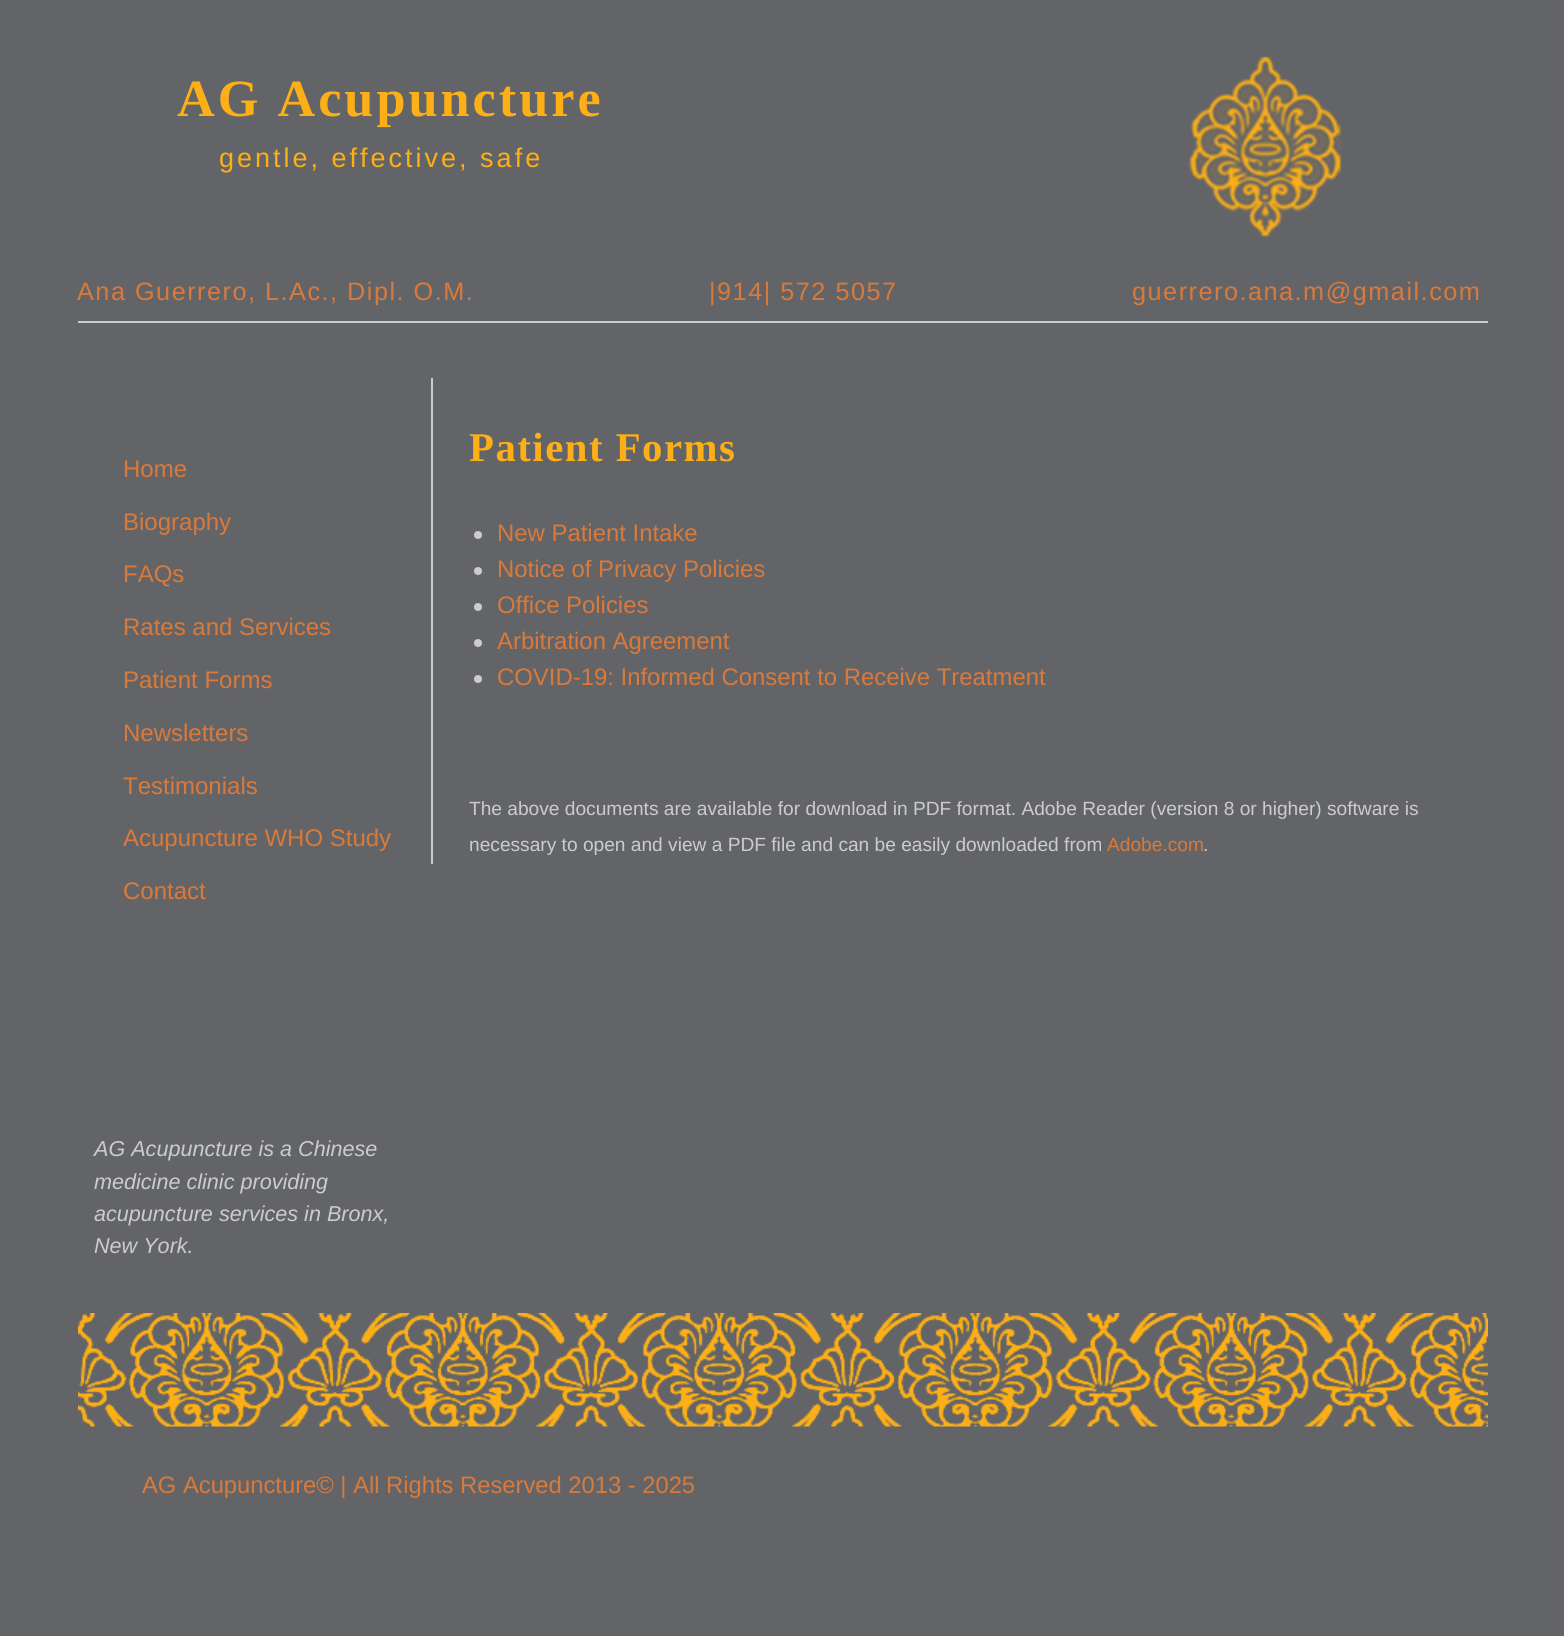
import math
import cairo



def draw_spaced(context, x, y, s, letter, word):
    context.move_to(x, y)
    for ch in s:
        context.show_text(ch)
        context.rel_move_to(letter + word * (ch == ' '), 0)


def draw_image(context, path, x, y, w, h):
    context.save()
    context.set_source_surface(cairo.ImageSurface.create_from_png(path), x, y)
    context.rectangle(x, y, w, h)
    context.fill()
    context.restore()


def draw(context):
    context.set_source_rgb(99 / 255, 100 / 255, 104 / 255)
    context.paint()
    draw_image(context, "images/1.png", 1186, 56, 156, 182)
    context.set_source_rgb(204 / 255, 204 / 255, 204 / 255)
    context.rectangle(78, 321, 1410, 2)
    context.fill()
    context.rectangle(431, 378, 2, 486)
    context.fill()
    context.arc(478, 535, 4, 0, 2 * math.pi)
    context.fill()
    context.arc(478, 571, 4, 0, 2 * math.pi)
    context.fill()
    context.arc(478, 607, 4, 0, 2 * math.pi)
    context.fill()
    context.arc(478, 643, 4, 0, 2 * math.pi)
    context.fill()
    context.arc(478, 679, 4, 0, 2 * math.pi)
    context.fill()
    draw_image(context, "images/2.png", 78, 1313, 1410, 114)
    context.select_font_face("Liberation Serif", cairo.FontSlant.NORMAL, cairo.FontWeight.BOLD)
    context.set_font_size(52.25)
    context.set_source_rgb(252 / 255, 175 / 255, 23 / 255)
    draw_spaced(context, 177, 116, "AG Acupuncture", 3, 0)
    context.select_font_face("Liberation Sans")
    context.set_font_size(27)
    draw_spaced(context, 219, 167, "gentle, effective, safe", 3, 0)
    context.set_font_size(25.25)
    context.set_source_rgb(217 / 255, 122 / 255, 58 / 255)
    draw_spaced(context, 77, 300, "Ana Guerrero, L.Ac., Dipl. O.M.", 1.5, 0)
    draw_spaced(context, 709, 300, "|914| 572 5057", 1.5, 0)
    draw_spaced(context, 1132, 300, "guerrero.ana.m@gmail.com", 1.5, 0)
    context.set_font_size(24)
    context.move_to(123, 477)
    context.show_text("Home")
    context.move_to(123, 530)
    context.show_text("Biography")
    context.move_to(123, 582)
    context.show_text("FAQs")
    context.move_to(123, 635)
    context.show_text("Rates and Services")
    context.move_to(123, 688)
    context.show_text("Patient Forms")
    context.move_to(123, 741)
    context.show_text("Newsletters")
    context.move_to(123, 794)
    context.show_text("Testimonials")
    context.move_to(123, 846)
    context.show_text("Acupuncture WHO Study")
    context.move_to(123, 899)
    context.show_text("Contact")
    context.select_font_face("Liberation Sans", cairo.FontSlant.ITALIC)
    context.set_font_size(21.6)
    context.set_source_rgb(204 / 255, 204 / 255, 204 / 255)
    context.move_to(94, 1156)
    context.show_text("AG Acupuncture is a Chinese")
    context.move_to(94, 1189)
    context.show_text("medicine clinic providing")
    context.move_to(94, 1221)
    context.show_text("acupuncture services in Bronx,")
    context.move_to(94, 1253)
    context.show_text("New York.")
    context.select_font_face("Liberation Serif", cairo.FontSlant.NORMAL, cairo.FontWeight.BOLD)
    context.set_font_size(40.75)
    context.set_source_rgb(252 / 255, 175 / 255, 23 / 255)
    draw_spaced(context, 469, 461, "Patient Forms", 1.5, 0)
    context.select_font_face("Liberation Sans")
    context.set_font_size(23.9)
    context.set_source_rgb(217 / 255, 122 / 255, 58 / 255)
    context.move_to(497, 541)
    context.show_text("New Patient Intake")
    context.move_to(497, 577)
    context.show_text("Notice of Privacy Policies")
    context.move_to(497, 613)
    context.show_text("Office Policies")
    context.move_to(497, 649)
    context.show_text("Arbitration Agreement")
    context.move_to(497, 685)
    context.show_text("COVID-19: Informed Consent to Receive Treatment")
    context.set_font_size(19.15)
    context.set_source_rgb(204 / 255, 204 / 255, 204 / 255)
    context.move_to(469, 815)
    context.show_text("The above documents are available for download in PDF format. Adobe Reader (version 8 or higher) software is")
    context.move_to(469, 851)
    context.show_text("necessary to open and view a PDF file and can be easily downloaded from")
    context.set_source_rgb(217 / 255, 122 / 255, 58 / 255)
    context.move_to(1107, 851)
    context.show_text("Adobe.com")
    context.set_source_rgb(204 / 255, 204 / 255, 204 / 255)
    context.move_to(1203, 851)
    context.show_text(".")
    context.set_font_size(23.75)
    context.set_source_rgb(217 / 255, 122 / 255, 58 / 255)
    context.move_to(142, 1493)
    context.show_text("AG Acupuncture© | All Rights Reserved 2013 - 2025")


surface = cairo.ImageSurface(cairo.Format.RGB24, 1564, 1636)
context = cairo.Context(surface)
options = cairo.FontOptions()
options.set_hint_metrics(cairo.HintMetrics.OFF)
options.set_hint_style(cairo.HintStyle.NONE)
context.set_font_options(options)
context.set_miter_limit(4)
draw(context)
surface.write_to_png("out.png")
